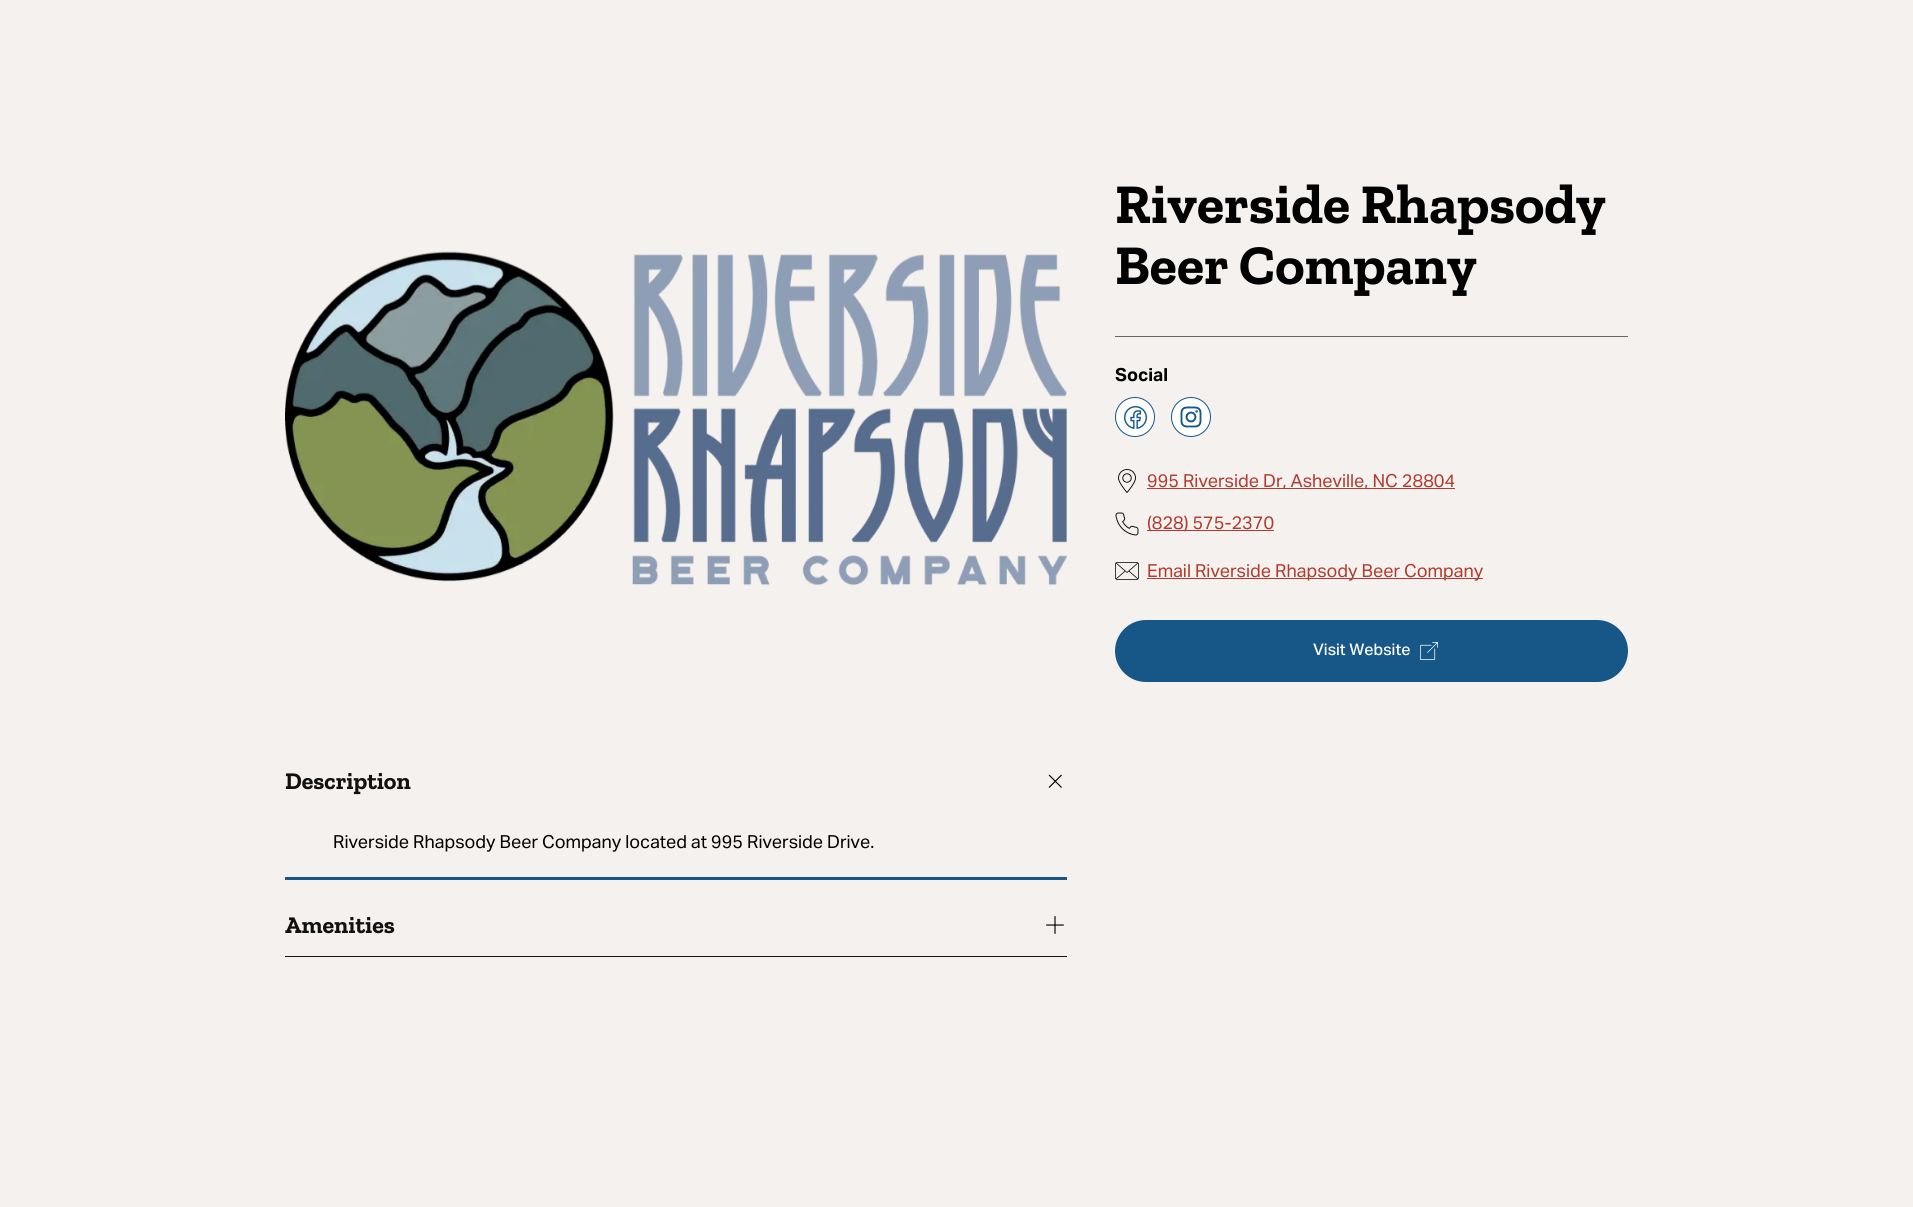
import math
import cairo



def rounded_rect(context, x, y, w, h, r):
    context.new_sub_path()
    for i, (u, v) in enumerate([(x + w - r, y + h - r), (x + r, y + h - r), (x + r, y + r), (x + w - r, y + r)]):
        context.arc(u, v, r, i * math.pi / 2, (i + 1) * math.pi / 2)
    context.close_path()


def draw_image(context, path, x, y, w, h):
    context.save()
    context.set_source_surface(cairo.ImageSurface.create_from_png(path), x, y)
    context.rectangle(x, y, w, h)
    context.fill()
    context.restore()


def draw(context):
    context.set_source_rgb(244 / 255, 241 / 255, 238 / 255)
    context.paint()
    draw_image(context, "images/1.png", 285, 251, 782, 335)
    context.set_source_rgb(102 / 255, 102 / 255, 102 / 255)
    context.rectangle(1115, 336, 513, 1)
    context.fill()
    context.set_source_rgb(1, 1, 1)
    context.arc(1135, 417, 19.5, 0, 2 * math.pi)
    context.fill_preserve()
    context.set_source_rgb(22 / 255, 87 / 255, 136 / 255)
    context.set_line_width(1)
    context.stroke()
    draw_image(context, "images/2.png", 1124, 406, 23, 23)
    context.set_source_rgb(1, 1, 1)
    context.arc(1191, 417, 19.5, 0, 2 * math.pi)
    context.fill_preserve()
    context.set_source_rgb(22 / 255, 87 / 255, 136 / 255)
    context.stroke()
    draw_image(context, "images/3.png", 1180, 406, 22, 22)
    draw_image(context, "images/4.png", 1118, 469, 18, 24)
    context.set_source_rgb(176 / 255, 60 / 255, 47 / 255)
    context.rectangle(1147, 488, 308, 1)
    context.fill()
    draw_image(context, "images/5.png", 1115, 512, 24, 24)
    context.rectangle(1147, 530, 127, 1)
    context.fill()
    draw_image(context, "images/6.png", 1115, 562, 24, 18)
    context.rectangle(1147, 578, 336, 1)
    context.fill()
    context.set_source_rgb(22 / 255, 87 / 255, 136 / 255)
    rounded_rect(context, 1115, 620, 513, 62, 31)
    context.fill()
    draw_image(context, "images/7.png", 1420, 642, 18, 18)
    context.rectangle(285, 877, 782, 3)
    context.fill()
    draw_image(context, "images/8.png", 1048, 774, 14, 14)
    draw_image(context, "images/9.png", 1046, 916, 18, 18)
    context.set_source_rgb(17 / 255, 17 / 255, 17 / 255)
    context.rectangle(285, 956, 782, 1)
    context.fill()
    context.select_font_face("Zilla Slab", cairo.FontSlant.NORMAL, cairo.FontWeight.BOLD)
    context.set_font_size(56)
    context.set_source_rgb(0, 0, 0)
    context.move_to(1115, 223)
    context.show_text("Riverside Rhapsody")
    context.move_to(1115, 284)
    context.show_text("Beer Company")
    context.select_font_face("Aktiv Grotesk", cairo.FontSlant.NORMAL, cairo.FontWeight.BOLD)
    context.set_font_size(18)
    context.move_to(1115, 381)
    context.show_text("Social")
    context.select_font_face("Aktiv Grotesk")
    context.set_source_rgb(176 / 255, 60 / 255, 47 / 255)
    context.move_to(1147, 487)
    context.show_text("995 Riverside Dr, Asheville, NC 28804")
    context.move_to(1147, 529)
    context.show_text("(828) 575-2370")
    context.move_to(1147, 577)
    context.show_text("Email Riverside Rhapsody Beer Company")
    context.select_font_face("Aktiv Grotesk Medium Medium")
    context.set_font_size(16)
    context.set_source_rgb(1, 1, 1)
    context.move_to(1313, 655)
    context.show_text("Visit Website")
    context.select_font_face("Zilla Slab", cairo.FontSlant.NORMAL, cairo.FontWeight.BOLD)
    context.set_font_size(24)
    context.set_source_rgb(17 / 255, 17 / 255, 17 / 255)
    context.move_to(285, 789)
    context.show_text("Description")
    context.select_font_face("Aktiv Grotesk")
    context.set_font_size(18)
    context.set_source_rgb(0, 0, 0)
    context.move_to(333, 848)
    context.show_text("Riverside Rhapsody Beer Company located at 995 Riverside Drive.")
    context.select_font_face("Zilla Slab", cairo.FontSlant.NORMAL, cairo.FontWeight.BOLD)
    context.set_font_size(24)
    context.set_source_rgb(17 / 255, 17 / 255, 17 / 255)
    context.move_to(285, 933)
    context.show_text("Amenities")


surface = cairo.ImageSurface(cairo.Format.RGB24, 1913, 1207)
context = cairo.Context(surface)
options = cairo.FontOptions()
options.set_hint_metrics(cairo.HintMetrics.OFF)
options.set_hint_style(cairo.HintStyle.NONE)
context.set_font_options(options)
context.set_miter_limit(4)
draw(context)
surface.write_to_png("out.png")
